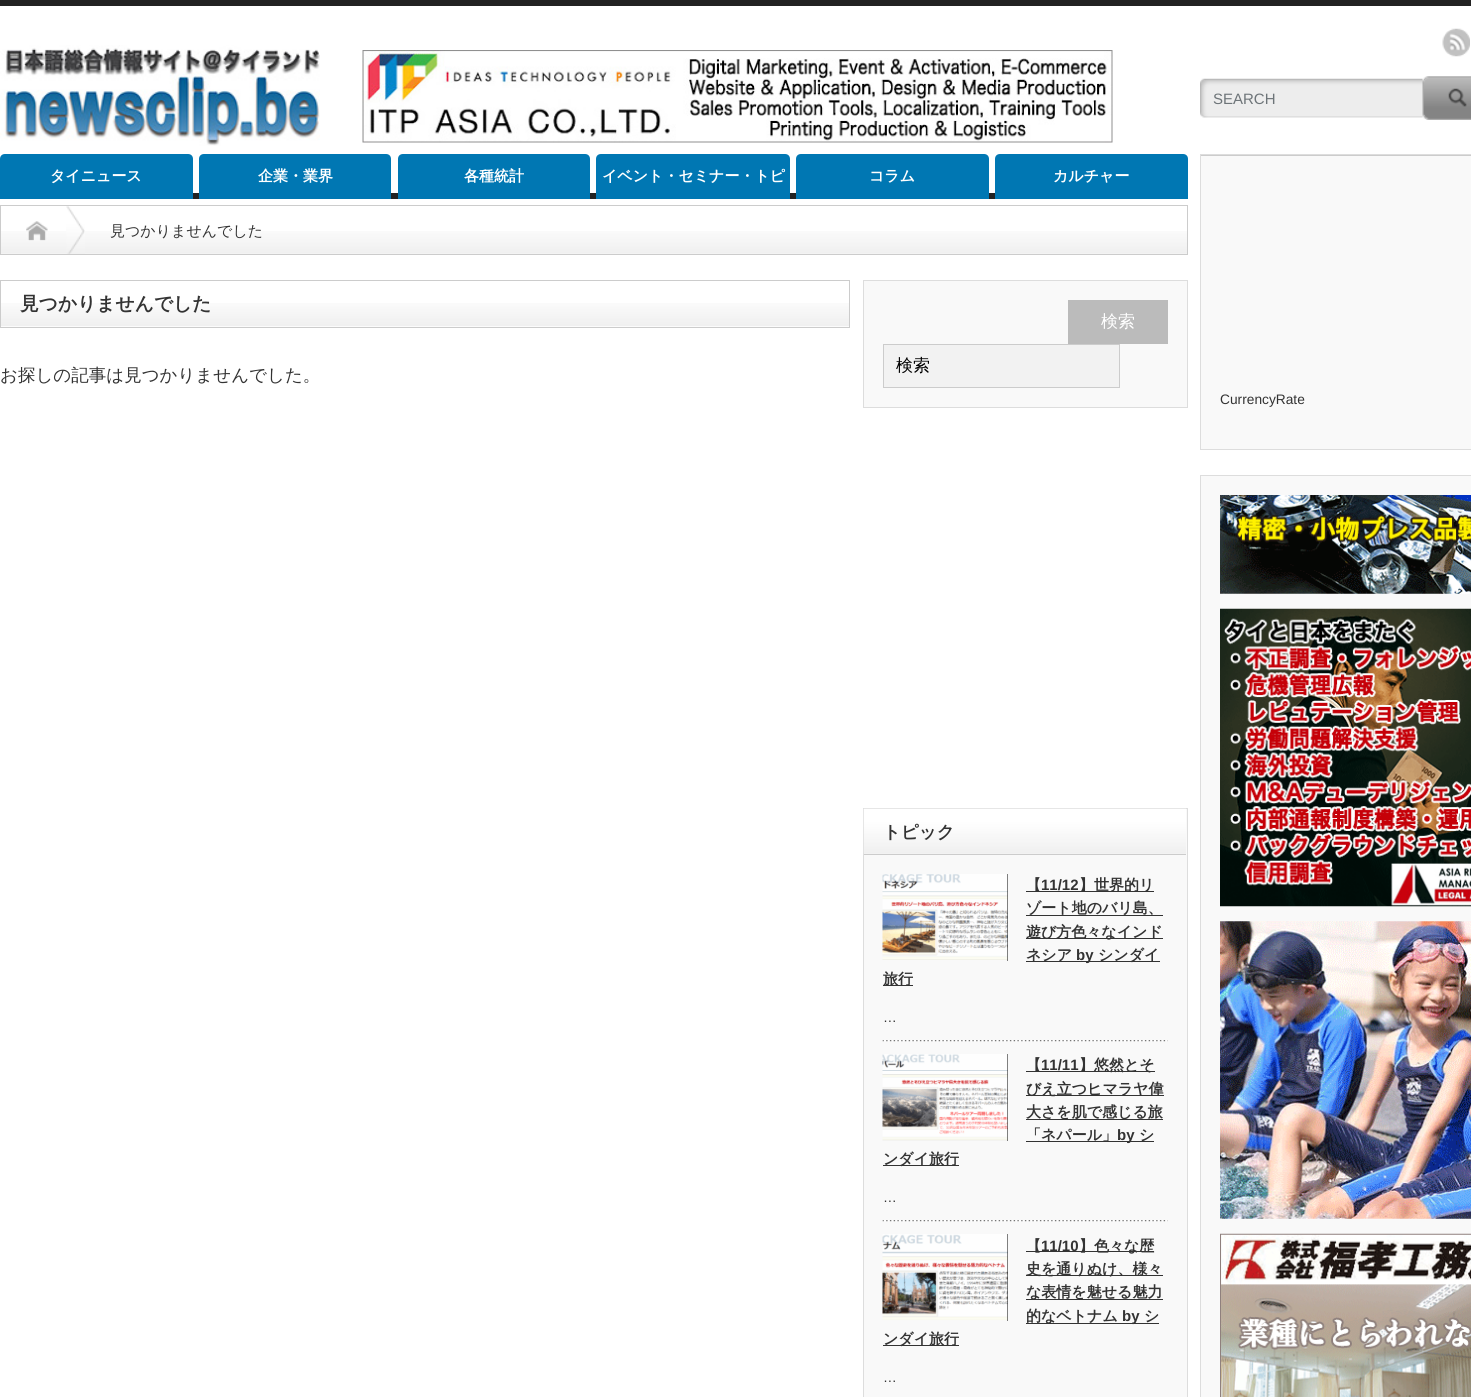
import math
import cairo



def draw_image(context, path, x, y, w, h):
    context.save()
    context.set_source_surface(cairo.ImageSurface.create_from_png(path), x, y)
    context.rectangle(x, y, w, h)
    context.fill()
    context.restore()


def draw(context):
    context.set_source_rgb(1, 1, 1)
    context.paint()
    context.set_source_rgb(34 / 255, 34 / 255, 34 / 255)
    context.rectangle(0, 0, 1471, 6)
    context.fill()
    draw_image(context, "images/1.png", 0, 45, 320, 101)
    draw_image(context, "images/2.png", 362, 50, 751, 93)
    draw_image(context, "images/3.png", 1200, 78, 223, 40)
    draw_image(context, "images/4.png", 1422, 76, 49, 44)
    draw_image(context, "images/5.png", 1442, 28, 28, 29)
    context.rectangle(193, 193, 802, 6)
    context.fill()
    context.set_source_rgb(0, 119 / 255, 179 / 255)
    context.new_path()
    context.move_to(5, 154)
    context.line_to(188, 154)
    context.curve_to(191, 154, 193, 156, 193, 159)
    context.line_to(193, 199)
    context.line_to(0, 199)
    context.line_to(0, 159)
    context.curve_to(0, 156, 2, 154, 5, 154)
    context.close_path()
    context.fill()
    context.new_path()
    context.move_to(204, 154)
    context.line_to(386, 154)
    context.curve_to(389, 154, 391, 156, 391, 159)
    context.line_to(391, 199)
    context.line_to(199, 199)
    context.line_to(199, 159)
    context.curve_to(199, 156, 201, 154, 204, 154)
    context.close_path()
    context.fill()
    context.new_path()
    context.move_to(403, 154)
    context.line_to(585, 154)
    context.curve_to(588, 154, 590, 156, 590, 159)
    context.line_to(590, 199)
    context.line_to(398, 199)
    context.line_to(398, 159)
    context.curve_to(398, 156, 400, 154, 403, 154)
    context.close_path()
    context.fill()
    context.new_path()
    context.move_to(601, 154)
    context.line_to(785, 154)
    context.curve_to(788, 154, 790, 156, 790, 159)
    context.line_to(790, 199)
    context.line_to(596, 199)
    context.line_to(596, 159)
    context.curve_to(596, 156, 598, 154, 601, 154)
    context.close_path()
    context.fill()
    context.new_path()
    context.move_to(801, 154)
    context.line_to(984, 154)
    context.curve_to(987, 154, 989, 156, 989, 159)
    context.line_to(989, 199)
    context.line_to(796, 199)
    context.line_to(796, 159)
    context.curve_to(796, 156, 798, 154, 801, 154)
    context.close_path()
    context.fill()
    context.new_path()
    context.move_to(1000, 154)
    context.line_to(1183, 154)
    context.curve_to(1186, 154, 1188, 156, 1188, 159)
    context.line_to(1188, 199)
    context.line_to(995, 199)
    context.line_to(995, 159)
    context.curve_to(995, 156, 997, 154, 1000, 154)
    context.close_path()
    context.fill()
    draw_image(context, "images/6.png", 1, 231, 1186, 23)
    context.rectangle(0.5, 205.5, 1187, 49)
    context.set_source_rgb(204 / 255, 204 / 255, 204 / 255)
    context.set_line_width(1)
    context.stroke()
    draw_image(context, "images/7.png", 66, 206, 19, 48)
    draw_image(context, "images/8.png", 26, 221, 22, 20)
    draw_image(context, "images/9.png", 1, 303, 848, 24)
    context.rectangle(0.5, 280.5, 849, 47)
    context.stroke()
    context.set_source_rgb(249 / 255, 249 / 255, 249 / 255)
    context.rectangle(863.5, 280.5, 324, 127)
    context.fill_preserve()
    context.set_source_rgb(221 / 255, 221 / 255, 221 / 255)
    context.stroke()
    context.set_source_rgb(187 / 255, 187 / 255, 187 / 255)
    context.rectangle(1068, 300, 100, 44)
    context.fill()
    context.set_source_rgb(242 / 255, 242 / 255, 242 / 255)
    context.rectangle(883.5, 344.5, 236, 43)
    context.fill_preserve()
    context.set_source_rgb(204 / 255, 204 / 255, 204 / 255)
    context.stroke()
    context.set_source_rgb(249 / 255, 249 / 255, 249 / 255)
    context.rectangle(863.5, 808.5, 324, 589)
    context.fill_preserve()
    context.set_source_rgb(221 / 255, 221 / 255, 221 / 255)
    context.stroke()
    draw_image(context, "images/10.png", 863, 808, 323, 46)
    context.set_source_rgb(204 / 255, 204 / 255, 204 / 255)
    context.rectangle(864, 854, 322, 1)
    context.fill()
    draw_image(context, "images/11.png", 882, 1040, 286, 2)
    context.set_source_rgb(0, 0, 0)
    context.rectangle(1007, 874, 1, 87)
    context.fill()
    draw_image(context, "images/12.png", 882, 874, 126, 87)
    context.set_source_rgb(51 / 255, 51 / 255, 51 / 255)
    context.rectangle(1026, 891, 128, 1)
    context.fill()
    context.rectangle(1026, 915, 137, 1)
    context.fill()
    context.rectangle(1026, 938, 137, 1)
    context.fill()
    context.rectangle(1026, 961, 134, 1)
    context.fill()
    context.rectangle(883, 985, 30, 1)
    context.fill()
    draw_image(context, "images/11.png", 882, 1220, 286, 2)
    context.set_source_rgb(0, 0, 0)
    context.rectangle(1007, 1054, 1, 87)
    context.fill()
    draw_image(context, "images/13.png", 882, 1054, 126, 87)
    context.set_source_rgb(51 / 255, 51 / 255, 51 / 255)
    context.rectangle(1026, 1071, 129, 1)
    context.fill()
    context.rectangle(1026, 1095, 138, 1)
    context.fill()
    context.rectangle(1026, 1119, 137, 1)
    context.fill()
    context.rectangle(1026, 1141, 128, 1)
    context.fill()
    context.rectangle(883, 1165, 76, 1)
    context.fill()
    context.set_source_rgb(0, 0, 0)
    context.rectangle(1007, 1234, 1, 87)
    context.fill()
    draw_image(context, "images/14.png", 882, 1234, 126, 87)
    context.set_source_rgb(51 / 255, 51 / 255, 51 / 255)
    context.rectangle(1026, 1251, 128, 1)
    context.fill()
    context.rectangle(1026, 1275, 137, 1)
    context.fill()
    context.rectangle(1026, 1299, 137, 1)
    context.fill()
    context.rectangle(1026, 1323, 133, 1)
    context.fill()
    context.rectangle(883, 1345, 76, 1)
    context.fill()
    context.set_source_rgb(249 / 255, 249 / 255, 249 / 255)
    context.rectangle(1201, 156, 270, 293)
    context.fill()
    context.rectangle(1200.5, 154.5, 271, 295)
    context.set_source_rgb(221 / 255, 221 / 255, 221 / 255)
    context.stroke()
    context.set_source_rgb(204 / 255, 204 / 255, 204 / 255)
    context.rectangle(1201, 155, 270, 1)
    context.fill()
    context.set_source_rgb(249 / 255, 249 / 255, 249 / 255)
    context.rectangle(1200.5, 475.5, 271, 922)
    context.fill_preserve()
    context.set_source_rgb(221 / 255, 221 / 255, 221 / 255)
    context.stroke()
    draw_image(context, "images/15.png", 1220, 495, 251, 99)
    draw_image(context, "images/16.png", 1220, 608, 251, 299)
    draw_image(context, "images/17.png", 1220, 921, 251, 298)
    draw_image(context, "images/18.png", 1220, 1233, 251, 164)
    context.select_font_face("Liberation Sans")
    context.set_font_size(15)
    context.set_source_rgb(109 / 255, 116 / 255, 120 / 255)
    context.move_to(1213, 104)
    context.show_text("SEARCH")
    context.select_font_face("WenQuanYi Zen Hei", cairo.FontSlant.NORMAL, cairo.FontWeight.BOLD)
    context.set_source_rgb(1, 1, 1)
    context.move_to(50, 181)
    context.show_text("タイニュース")
    context.move_to(258, 181)
    context.show_text("企業・業界")
    context.move_to(464, 181)
    context.show_text("各種統計")
    context.move_to(602, 181)
    context.show_text("イベント・セミナー・トピ")
    context.move_to(869, 181)
    context.show_text("コラム")
    context.move_to(1053, 181)
    context.show_text("カルチャー")
    context.select_font_face("WenQuanYi Zen Hei Medium")
    context.set_source_rgb(51 / 255, 51 / 255, 51 / 255)
    context.move_to(110, 236)
    context.show_text("見つかりませんでした")
    context.select_font_face("WenQuanYi Zen Hei", cairo.FontSlant.NORMAL, cairo.FontWeight.BOLD)
    context.set_font_size(18.75)
    context.move_to(20, 310)
    context.show_text("見つかりませんでした")
    context.select_font_face("WenQuanYi Zen Hei Medium")
    context.set_font_size(17.5)
    context.move_to(0, 381)
    context.show_text("お探しの記事は見つかりませんでした。")
    context.set_font_size(17)
    context.set_source_rgb(1, 1, 1)
    context.move_to(1101, 327)
    context.show_text("検索")
    context.set_source_rgb(0, 0, 0)
    context.move_to(896, 371)
    context.show_text("検索")
    context.select_font_face("WenQuanYi Zen Hei", cairo.FontSlant.NORMAL, cairo.FontWeight.BOLD)
    context.set_font_size(17.5)
    context.set_source_rgb(51 / 255, 51 / 255, 51 / 255)
    context.move_to(883, 838)
    context.show_text("トピック")
    context.set_font_size(15)
    context.move_to(1026, 890)
    context.show_text("【")
    context.select_font_face("Liberation Sans", cairo.FontSlant.NORMAL, cairo.FontWeight.BOLD)
    context.move_to(1041, 890)
    context.show_text("11/12")
    context.select_font_face("WenQuanYi Zen Hei", cairo.FontSlant.NORMAL, cairo.FontWeight.BOLD)
    context.move_to(1079, 890)
    context.show_text("】世界的リ")
    context.move_to(1026, 913)
    context.show_text("ゾート地のバリ島、")
    context.move_to(1026, 937)
    context.show_text("遊び方色々なインド")
    context.move_to(1026, 960)
    context.show_text("ネシア")
    context.select_font_face("Liberation Sans", cairo.FontSlant.NORMAL, cairo.FontWeight.BOLD)
    context.move_to(1076, 960)
    context.show_text("by")
    context.select_font_face("WenQuanYi Zen Hei", cairo.FontSlant.NORMAL, cairo.FontWeight.BOLD)
    context.move_to(1098, 960)
    context.show_text("シンダイ")
    context.move_to(883, 984)
    context.show_text("旅行")
    context.select_font_face("Liberation Sans")
    context.set_font_size(13.75)
    context.move_to(883, 1022)
    context.show_text("…")
    context.select_font_face("WenQuanYi Zen Hei", cairo.FontSlant.NORMAL, cairo.FontWeight.BOLD)
    context.set_font_size(15)
    context.move_to(1026, 1070)
    context.show_text("【")
    context.select_font_face("Liberation Sans", cairo.FontSlant.NORMAL, cairo.FontWeight.BOLD)
    context.move_to(1041, 1070)
    context.show_text("11/11")
    context.select_font_face("WenQuanYi Zen Hei", cairo.FontSlant.NORMAL, cairo.FontWeight.BOLD)
    context.move_to(1079, 1070)
    context.show_text("】悠然とそ")
    context.move_to(1026, 1094)
    context.show_text("びえ立つヒマラヤ偉")
    context.move_to(1026, 1117)
    context.show_text("大さを肌で感じる旅")
    context.move_to(1026, 1140)
    context.show_text("「ネパール」")
    context.select_font_face("Liberation Sans", cairo.FontSlant.NORMAL, cairo.FontWeight.BOLD)
    context.move_to(1117, 1140)
    context.show_text("by")
    context.select_font_face("WenQuanYi Zen Hei", cairo.FontSlant.NORMAL, cairo.FontWeight.BOLD)
    context.move_to(1139, 1140)
    context.show_text("シ")
    context.move_to(883, 1164)
    context.show_text("ンダイ旅行")
    context.select_font_face("Liberation Sans")
    context.set_font_size(13.75)
    context.move_to(883, 1202)
    context.show_text("…")
    context.select_font_face("WenQuanYi Zen Hei", cairo.FontSlant.NORMAL, cairo.FontWeight.BOLD)
    context.set_font_size(15)
    context.move_to(1026, 1251)
    context.show_text("【")
    context.select_font_face("Liberation Sans", cairo.FontSlant.NORMAL, cairo.FontWeight.BOLD)
    context.move_to(1041, 1251)
    context.show_text("11/10")
    context.select_font_face("WenQuanYi Zen Hei", cairo.FontSlant.NORMAL, cairo.FontWeight.BOLD)
    context.move_to(1079, 1251)
    context.show_text("】色々な歴")
    context.move_to(1026, 1274)
    context.show_text("史を通りぬけ、様々")
    context.move_to(1026, 1297)
    context.show_text("な表情を魅せる魅力")
    context.move_to(1026, 1321)
    context.show_text("的なベトナム")
    context.select_font_face("Liberation Sans", cairo.FontSlant.NORMAL, cairo.FontWeight.BOLD)
    context.move_to(1122, 1321)
    context.show_text("by")
    context.select_font_face("WenQuanYi Zen Hei", cairo.FontSlant.NORMAL, cairo.FontWeight.BOLD)
    context.move_to(1144, 1321)
    context.show_text("シ")
    context.move_to(883, 1344)
    context.show_text("ンダイ旅行")
    context.select_font_face("Liberation Sans")
    context.set_font_size(13.75)
    context.move_to(883, 1382)
    context.show_text("…")
    context.move_to(1220, 404)
    context.show_text("CurrencyRate")


surface = cairo.ImageSurface(cairo.Format.RGB24, 1471, 1397)
context = cairo.Context(surface)
options = cairo.FontOptions()
options.set_hint_metrics(cairo.HintMetrics.OFF)
options.set_hint_style(cairo.HintStyle.NONE)
context.set_font_options(options)
context.set_miter_limit(4)
draw(context)
surface.write_to_png("out.png")
